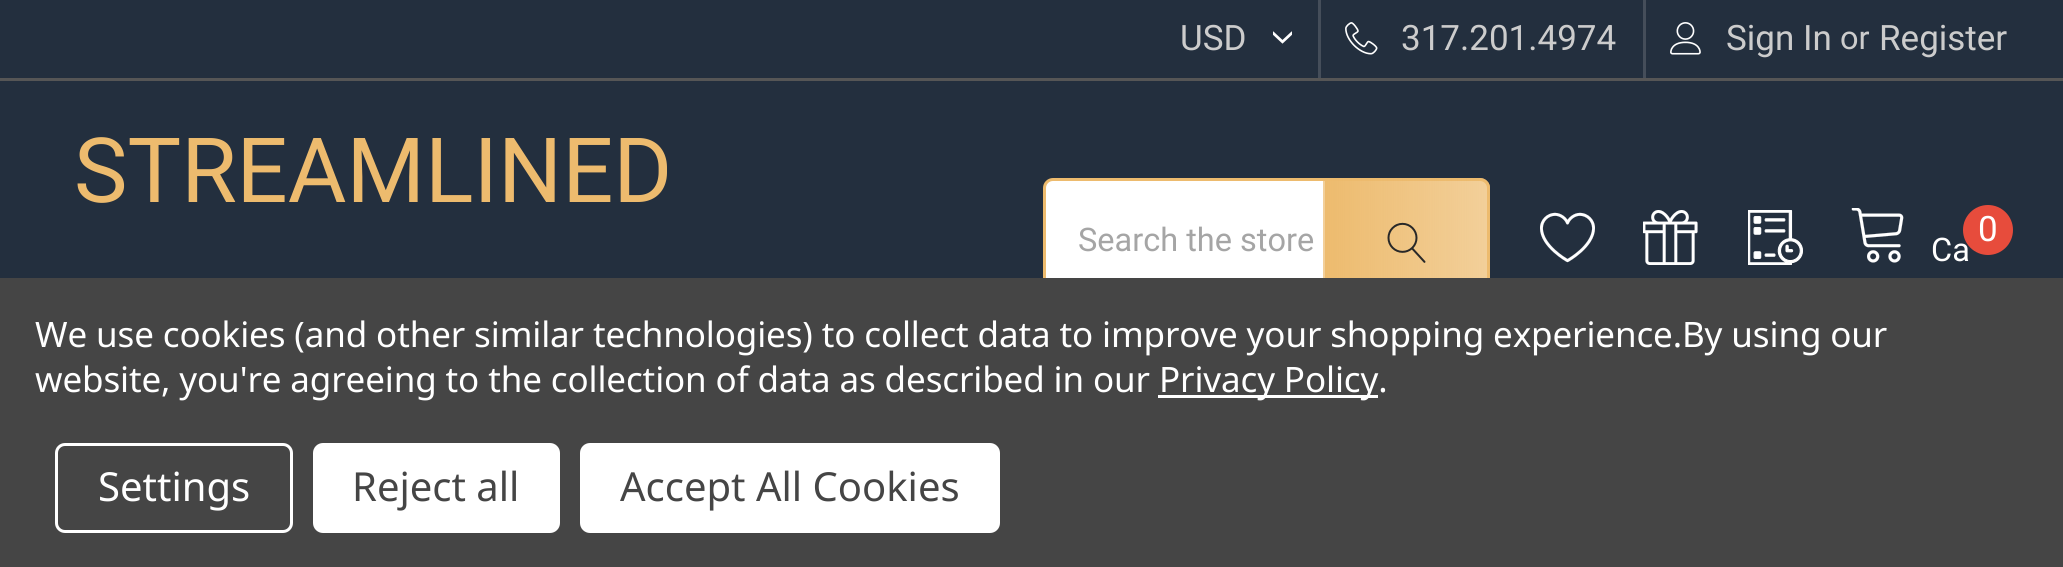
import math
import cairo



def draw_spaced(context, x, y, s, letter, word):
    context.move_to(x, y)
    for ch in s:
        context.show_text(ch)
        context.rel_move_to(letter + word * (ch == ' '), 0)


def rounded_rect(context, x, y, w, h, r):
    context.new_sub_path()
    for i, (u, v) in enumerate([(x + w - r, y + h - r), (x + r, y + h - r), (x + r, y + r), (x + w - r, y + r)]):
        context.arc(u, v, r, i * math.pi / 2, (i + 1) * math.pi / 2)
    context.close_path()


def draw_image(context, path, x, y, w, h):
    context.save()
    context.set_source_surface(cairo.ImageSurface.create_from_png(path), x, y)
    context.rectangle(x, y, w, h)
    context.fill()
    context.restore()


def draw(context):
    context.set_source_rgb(35 / 255, 47 / 255, 62 / 255)
    context.paint()
    context.set_source_rgb(86 / 255, 86 / 255, 86 / 255)
    context.rectangle(0, 78, 2063, 3)
    context.fill()
    draw_image(context, "images/1.png", 1273, 31, 19, 13)
    context.set_source_rgb(69 / 255, 78 / 255, 90 / 255)
    context.rectangle(1318, 0, 3, 78)
    context.fill()
    draw_image(context, "images/2.png", 1345, 22, 33, 33)
    context.rectangle(1643, 0, 3, 78)
    context.fill()
    draw_image(context, "images/3.png", 1670, 22, 31, 33)
    context.set_source_rgb(1, 1, 1)
    rounded_rect(context, 1044.5, 179.5, 444, 122, 8.5)
    context.fill_preserve()
    context.set_source_rgb(237 / 255, 187 / 255, 110 / 255)
    context.set_line_width(3)
    context.stroke()
    gradient = cairo.LinearGradient(1163, 240, 1325, 240)
    gradient.add_color_stop_rgba(0, 237 / 255, 187 / 255, 110 / 255, 1)
    gradient.add_color_stop_rgba(1, 237 / 255, 187 / 255, 110 / 255, 0.7)
    context.set_source(gradient)
    context.rectangle(1323, 178, 2, 100)
    context.fill()
    context.save()
    context.new_path()
    context.move_to(1323, 178)
    context.line_to(1480, 178)
    context.curve_to(1485.5, 178, 1490, 182.5, 1490, 188)
    context.line_to(1490, 293)
    context.curve_to(1490, 298.5, 1485.5, 303, 1480, 303)
    context.line_to(1323, 303)
    context.close_path()
    context.clip()
    gradient = cairo.LinearGradient(1325, 240, 1488, 240)
    gradient.add_color_stop_rgba(0, 237 / 255, 187 / 255, 110 / 255, 1)
    gradient.add_color_stop_rgba(1, 237 / 255, 187 / 255, 110 / 255, 0.7)
    context.set_source(gradient)
    context.rectangle(1325, 178, 163, 100)
    context.fill()
    gradient = cairo.LinearGradient(1488, 240, 1650, 240)
    gradient.add_color_stop_rgba(0, 237 / 255, 187 / 255, 110 / 255, 1)
    gradient.add_color_stop_rgba(1, 237 / 255, 187 / 255, 110 / 255, 0.7)
    context.set_source(gradient)
    context.rectangle(1488, 178, 2, 100)
    context.fill()
    context.restore()
    draw_image(context, "images/4.png", 1387, 222, 39, 41)
    draw_image(context, "images/5.png", 1540, 212, 55, 51)
    draw_image(context, "images/6.png", 1643, 210, 55, 55)
    draw_image(context, "images/7.png", 1748, 210, 55, 55)
    draw_image(context, "images/8.png", 1851, 208, 53, 55)
    context.set_source_rgb(69 / 255, 69 / 255, 69 / 255)
    context.rectangle(0, 278, 2063, 289)
    context.fill()
    context.set_source_rgb(1, 1, 1)
    context.rectangle(1158, 395, 220, 3)
    context.fill()
    rounded_rect(context, 56.5, 444.5, 235, 87, 8.5)
    context.stroke()
    rounded_rect(context, 313, 443, 247, 90, 10)
    context.fill()
    rounded_rect(context, 580, 443, 420, 90, 10)
    context.fill()
    context.select_font_face("Roboto")
    context.set_font_size(35)
    context.set_source_rgb(204 / 255, 204 / 255, 204 / 255)
    context.move_to(1180, 50)
    context.show_text("USD")
    context.move_to(1401, 50)
    context.show_text("317.201.4974")
    context.move_to(1726, 50)
    context.show_text("Sign In")
    context.set_font_size(32.5)
    context.move_to(1840, 49)
    context.show_text("or")
    context.set_font_size(35)
    context.move_to(1879, 50)
    context.show_text("Register")
    context.set_font_size(90)
    context.set_source_rgb(237 / 255, 187 / 255, 110 / 255)
    context.move_to(74, 202)
    context.show_text("STREAMLINED")
    context.set_font_size(32.5)
    context.set_source_rgb(165 / 255, 165 / 255, 165 / 255)
    context.move_to(1078, 251)
    context.show_text("Search the store")
    context.set_source_rgb(1, 1, 1)
    context.move_to(1931, 261)
    context.show_text("Ca")
    context.set_source_rgb(231 / 255, 76 / 255, 60 / 255)
    context.new_path()
    context.arc(1988, 230, 25, 0, 2 * math.pi)
    context.fill()
    context.set_font_size(35)
    context.set_source_rgb(1, 1, 1)
    context.move_to(1978, 241)
    context.show_text("0")
    context.select_font_face("Noto Sans")
    draw_spaced(context, 35, 347, "We use cookies (and other similar technologies) to collect data to improve your shopping experience.By using our", -0.12, 0)
    draw_spaced(context, 35, 392, "website, you're agreeing to the collection of data as described in our", -0.12, 0)
    draw_spaced(context, 1159, 392, "Privacy Policy.", -0.12, 0)
    context.set_font_size(40)
    context.move_to(98, 501)
    context.show_text("Settings")
    context.set_source_rgb(69 / 255, 69 / 255, 69 / 255)
    context.move_to(352, 501)
    context.show_text("Reject all")
    context.move_to(620, 501)
    context.show_text("Accept All Cookies")


surface = cairo.ImageSurface(cairo.Format.RGB24, 2063, 567)
context = cairo.Context(surface)
options = cairo.FontOptions()
options.set_hint_metrics(cairo.HintMetrics.OFF)
options.set_hint_style(cairo.HintStyle.NONE)
context.set_font_options(options)
context.set_miter_limit(4)
draw(context)
surface.write_to_png("out.png")
